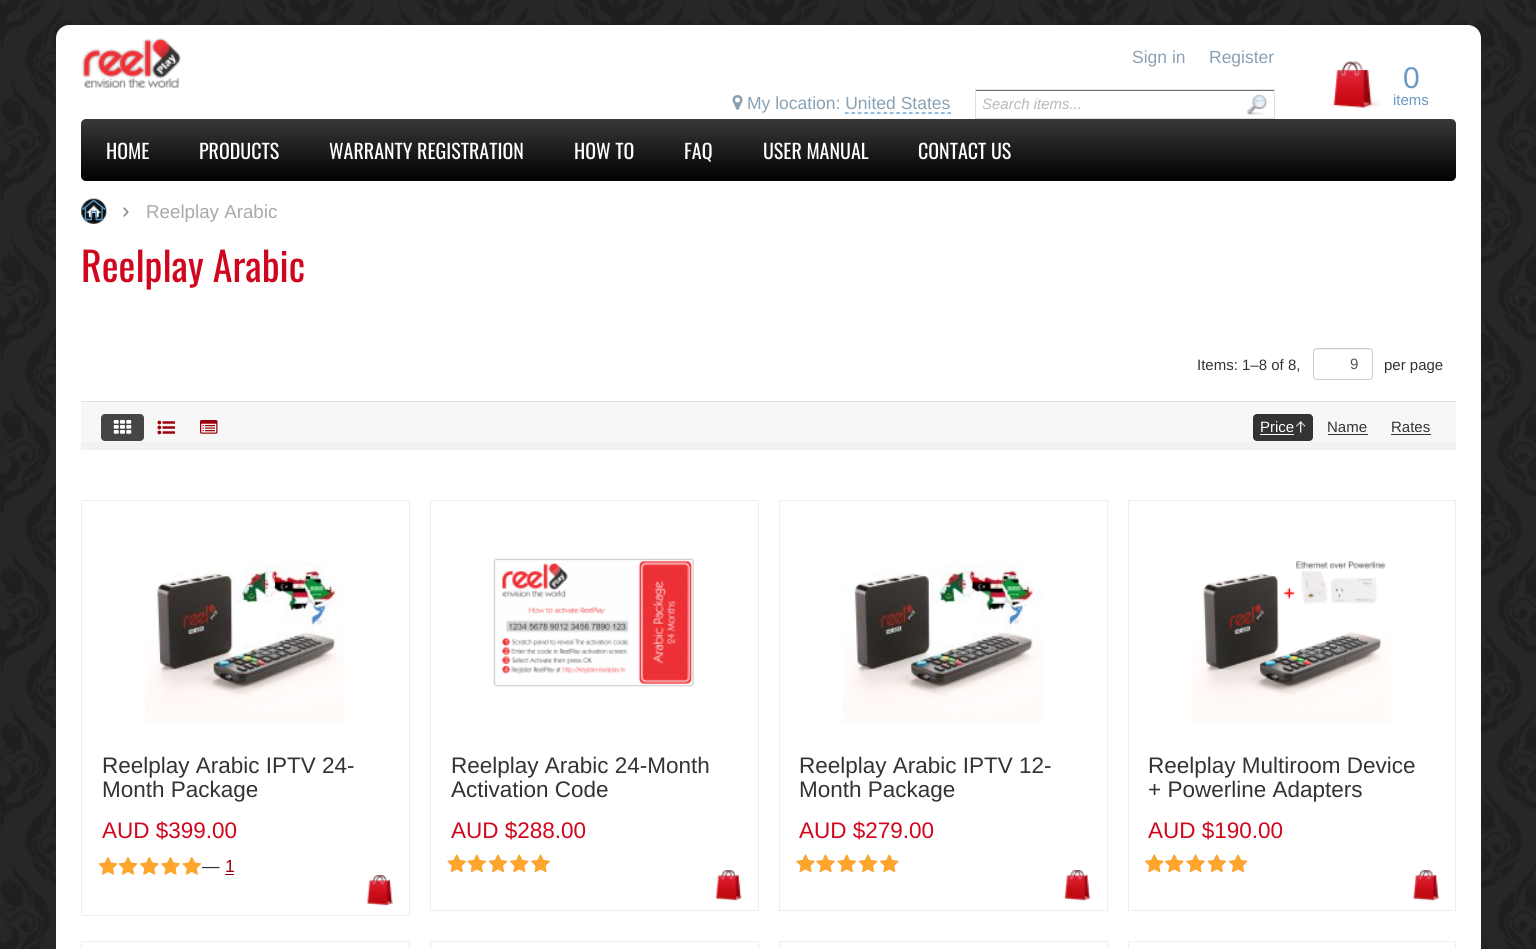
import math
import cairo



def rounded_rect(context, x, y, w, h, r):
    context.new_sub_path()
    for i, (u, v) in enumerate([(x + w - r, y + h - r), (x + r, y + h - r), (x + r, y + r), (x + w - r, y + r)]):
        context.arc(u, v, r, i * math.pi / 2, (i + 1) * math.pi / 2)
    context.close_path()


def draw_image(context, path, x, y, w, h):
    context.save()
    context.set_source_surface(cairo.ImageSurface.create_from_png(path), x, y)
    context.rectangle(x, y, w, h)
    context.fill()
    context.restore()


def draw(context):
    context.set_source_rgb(1, 1, 1)
    context.paint()
    draw_image(context, "images/1.png", 0, 0, 1536, 949)
    context.set_source_rgb(1, 1, 1)
    context.new_path()
    context.move_to(69, 25)
    context.line_to(1468, 25)
    context.curve_to(1475, 25, 1481, 31, 1481, 38)
    context.line_to(1481, 119)
    context.line_to(56, 119)
    context.line_to(56, 38)
    context.curve_to(56, 31, 62, 25, 69, 25)
    context.close_path()
    context.fill()
    draw_image(context, "images/2.png", 81, 38, 100, 50)
    draw_image(context, "images/3.png", 732, 95, 11, 15)
    context.set_source_rgb(114 / 255, 114 / 255, 114 / 255)
    context.rectangle(976, 90, 298, 1)
    context.fill()
    context.rectangle(975.5, 89.5, 299, 29)
    context.set_source_rgb(223 / 255, 223 / 255, 223 / 255)
    context.set_line_width(1)
    context.stroke()
    draw_image(context, "images/4.png", 1247, 94, 20, 21)
    draw_image(context, "images/5.png", 1329, 61, 53, 47)
    context.set_source_rgb(1, 1, 1)
    context.rectangle(56, 119, 1425, 830)
    context.fill()
    gradient = cairo.LinearGradient(769, 119, 769, 181)
    gradient.add_color_stop_rgba(0, 56 / 255, 56 / 255, 56 / 255, 1)
    gradient.add_color_stop_rgba(1, 1 / 255, 1 / 255, 1 / 255, 1)
    context.set_source(gradient)
    rounded_rect(context, 81, 119, 1375, 62, 5)
    context.fill()
    draw_image(context, "images/6.png", 81, 198, 26, 26)
    draw_image(context, "images/7.png", 82, 199, 24, 22)
    context.set_source_rgb(236 / 255, 236 / 255, 236 / 255)
    context.new_path()
    context.move_to(1316, 350)
    context.line_to(1369, 350)
    context.curve_to(1370, 350, 1371, 351, 1371, 352)
    context.curve_to(1371, 347, 1362, 349, 1360, 349)
    context.line_to(1325, 349)
    context.curve_to(1323, 349, 1314, 347, 1314, 352)
    context.curve_to(1314, 351, 1315, 350, 1316, 350)
    context.close_path()
    context.fill()
    rounded_rect(context, 1313.5, 348.5, 59, 31, 3.5)
    context.set_source_rgb(204 / 255, 204 / 255, 204 / 255)
    context.stroke()
    context.set_source_rgb(247 / 255, 247 / 255, 247 / 255)
    context.rectangle(81, 402, 1375, 40)
    context.fill()
    context.set_source_rgb(242 / 255, 242 / 255, 242 / 255)
    context.rectangle(81, 442, 1375, 8)
    context.fill()
    context.set_source_rgb(223 / 255, 223 / 255, 223 / 255)
    context.rectangle(81, 401, 1375, 1)
    context.fill()
    context.set_source_rgb(69 / 255, 69 / 255, 69 / 255)
    rounded_rect(context, 101, 414, 43, 27, 4)
    context.fill()
    draw_image(context, "images/8.png", 113, 420, 19, 14)
    draw_image(context, "images/9.png", 157, 420, 18, 15)
    draw_image(context, "images/10.png", 200, 420, 18, 14)
    context.set_source_rgb(51 / 255, 51 / 255, 51 / 255)
    rounded_rect(context, 1253, 414, 60, 27, 4)
    context.fill()
    context.set_source_rgb(1, 1, 1)
    context.rectangle(1260, 434, 34, 1)
    context.fill()
    draw_image(context, "images/11.png", 1296, 421, 9, 12)
    context.set_source_rgb(51 / 255, 51 / 255, 51 / 255)
    context.rectangle(1328, 434, 40, 1)
    context.fill()
    context.rectangle(1391, 434, 40, 1)
    context.fill()
    context.rectangle(81.5, 500.5, 328, 415)
    context.set_source_rgb(238 / 255, 238 / 255, 238 / 255)
    context.stroke()
    draw_image(context, "images/12.png", 145, 562, 200, 161)
    draw_image(context, "images/13.png", 98, 857, 20, 18)
    draw_image(context, "images/13.png", 118, 857, 20, 18)
    draw_image(context, "images/14.png", 140, 857, 19, 18)
    draw_image(context, "images/15.png", 161, 857, 19, 18)
    draw_image(context, "images/16.png", 182, 857, 19, 18)
    draw_image(context, "images/17.png", 98, 857, 20, 18)
    draw_image(context, "images/17.png", 118, 857, 20, 18)
    draw_image(context, "images/18.png", 140, 857, 19, 18)
    draw_image(context, "images/19.png", 161, 857, 19, 18)
    draw_image(context, "images/20.png", 182, 857, 19, 18)
    context.set_source_rgb(154 / 255, 0, 11 / 255)
    context.rectangle(225, 874, 9, 1)
    context.fill()
    draw_image(context, "images/21.png", 367, 875, 26, 31)
    context.rectangle(430.5, 500.5, 328, 410)
    context.set_source_rgb(238 / 255, 238 / 255, 238 / 255)
    context.stroke()
    draw_image(context, "images/22.png", 493, 558, 201, 129)
    draw_image(context, "images/23.png", 447, 854, 19, 18)
    draw_image(context, "images/23.png", 467, 854, 19, 18)
    draw_image(context, "images/24.png", 488, 854, 20, 18)
    draw_image(context, "images/25.png", 510, 854, 19, 18)
    draw_image(context, "images/26.png", 531, 854, 19, 18)
    draw_image(context, "images/27.png", 447, 854, 19, 19)
    draw_image(context, "images/27.png", 467, 854, 19, 19)
    draw_image(context, "images/28.png", 488, 854, 20, 19)
    draw_image(context, "images/29.png", 510, 854, 19, 19)
    draw_image(context, "images/30.png", 531, 854, 19, 19)
    draw_image(context, "images/31.png", 716, 870, 26, 31)
    context.rectangle(779.5, 500.5, 328, 410)
    context.stroke()
    draw_image(context, "images/32.png", 842, 562, 201, 161)
    draw_image(context, "images/26.png", 796, 854, 19, 18)
    draw_image(context, "images/26.png", 816, 854, 19, 18)
    draw_image(context, "images/23.png", 837, 854, 19, 18)
    draw_image(context, "images/24.png", 858, 854, 20, 18)
    draw_image(context, "images/25.png", 880, 854, 19, 18)
    draw_image(context, "images/30.png", 796, 854, 19, 19)
    draw_image(context, "images/30.png", 816, 854, 19, 19)
    draw_image(context, "images/27.png", 837, 854, 19, 19)
    draw_image(context, "images/28.png", 858, 854, 20, 19)
    draw_image(context, "images/29.png", 880, 854, 19, 19)
    draw_image(context, "images/33.png", 1064, 870, 27, 31)
    context.rectangle(1128.5, 500.5, 327, 410)
    context.stroke()
    draw_image(context, "images/34.png", 1191, 561, 200, 162)
    draw_image(context, "images/25.png", 1145, 854, 19, 18)
    draw_image(context, "images/25.png", 1165, 854, 19, 18)
    draw_image(context, "images/26.png", 1186, 854, 19, 18)
    draw_image(context, "images/23.png", 1207, 854, 19, 18)
    draw_image(context, "images/24.png", 1228, 854, 20, 18)
    draw_image(context, "images/29.png", 1145, 854, 19, 19)
    draw_image(context, "images/29.png", 1165, 854, 19, 19)
    draw_image(context, "images/30.png", 1186, 854, 19, 19)
    draw_image(context, "images/27.png", 1207, 854, 19, 19)
    draw_image(context, "images/28.png", 1228, 854, 20, 19)
    draw_image(context, "images/35.png", 1413, 870, 26, 31)
    context.rectangle(81.5, 941.5, 328, 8)
    context.stroke()
    context.rectangle(430.5, 941.5, 328, 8)
    context.stroke()
    context.rectangle(779.5, 941.5, 328, 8)
    context.stroke()
    context.rectangle(1128.5, 941.5, 327, 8)
    context.stroke()
    context.select_font_face("Liberation Sans")
    context.set_font_size(17.5)
    context.set_source_rgb(138 / 255, 161 / 255, 179 / 255)
    context.move_to(1132, 63)
    context.show_text("Sign in")
    context.move_to(1209, 63)
    context.show_text("Register")
    context.move_to(747, 109)
    context.show_text("My location: United States")
    context.new_path()
    context.move_to(845, 113)
    context.line_to(951, 113)
    context.set_source_rgb(81 / 255, 148 / 255, 197 / 255)
    context.set_line_width(1.2)
    context.set_dash([3.75, 2.65])
    context.stroke()
    context.select_font_face("Liberation Sans", cairo.FontSlant.ITALIC)
    context.set_font_size(15)
    context.set_source_rgb(184 / 255, 184 / 255, 184 / 255)
    context.move_to(982, 109)
    context.show_text("Search items...")
    context.select_font_face("Liberation Sans")
    context.set_font_size(30)
    context.set_source_rgb(105 / 255, 153 / 255, 196 / 255)
    context.move_to(1403, 88)
    context.show_text("0")
    context.set_font_size(15)
    context.move_to(1393, 105)
    context.show_text("items")
    context.select_font_face("Oswald")
    context.set_font_size(20)
    context.set_source_rgb(1, 1, 1)
    context.move_to(106, 159)
    context.show_text("HOME")
    context.move_to(199, 159)
    context.show_text("PRODUCTS")
    context.move_to(329, 159)
    context.show_text("WARRANTY REGISTRATION")
    context.move_to(574, 159)
    context.show_text("HOW TO")
    context.move_to(684, 159)
    context.show_text("FAQ")
    context.move_to(763, 159)
    context.show_text("USER MANUAL")
    context.move_to(918, 159)
    context.show_text("CONTACT US")
    context.select_font_face("Liberation Sans")
    context.set_font_size(22.5)
    context.set_source_rgb(136 / 255, 136 / 255, 136 / 255)
    context.move_to(122, 218)
    context.show_text("›")
    context.set_font_size(18.75)
    context.set_source_rgb(169 / 255, 169 / 255, 169 / 255)
    context.move_to(146, 218)
    context.show_text("Reelplay Arabic")
    context.select_font_face("Oswald")
    context.set_font_size(40)
    context.set_source_rgb(208 / 255, 6 / 255, 30 / 255)
    context.move_to(81, 282)
    context.show_text("Reelplay Arabic")
    context.select_font_face("Liberation Sans")
    context.set_font_size(15)
    context.set_source_rgb(51 / 255, 51 / 255, 51 / 255)
    context.move_to(1197, 370)
    context.show_text("Items: 1–8 of 8,")
    context.set_source_rgb(85 / 255, 85 / 255, 85 / 255)
    context.move_to(1350, 369)
    context.show_text("9")
    context.set_source_rgb(51 / 255, 51 / 255, 51 / 255)
    context.move_to(1384, 370)
    context.show_text("per page")
    context.set_source_rgb(1, 1, 1)
    context.move_to(1260, 432)
    context.show_text("Price")
    context.set_source_rgb(51 / 255, 51 / 255, 51 / 255)
    context.move_to(1327, 432)
    context.show_text("Name")
    context.move_to(1391, 432)
    context.show_text("Rates")
    context.set_font_size(22.5)
    context.move_to(102, 773)
    context.show_text("Reelplay Arabic IPTV 24-")
    context.move_to(102, 797)
    context.show_text("Month Package")
    context.set_source_rgb(208 / 255, 6 / 255, 30 / 255)
    context.move_to(102, 838)
    context.show_text("AUD $399.00")
    context.set_font_size(17.5)
    context.set_source_rgb(51 / 255, 51 / 255, 51 / 255)
    context.move_to(202, 872)
    context.show_text("—")
    context.set_source_rgb(154 / 255, 0, 11 / 255)
    context.move_to(225, 872)
    context.show_text("1")
    context.set_font_size(22.5)
    context.set_source_rgb(51 / 255, 51 / 255, 51 / 255)
    context.move_to(451, 773)
    context.show_text("Reelplay Arabic 24-Month")
    context.move_to(451, 797)
    context.show_text("Activation Code")
    context.set_source_rgb(208 / 255, 6 / 255, 30 / 255)
    context.move_to(451, 838)
    context.show_text("AUD $288.00")
    context.set_source_rgb(51 / 255, 51 / 255, 51 / 255)
    context.move_to(799, 773)
    context.show_text("Reelplay Arabic IPTV 12-")
    context.move_to(799, 797)
    context.show_text("Month Package")
    context.set_source_rgb(208 / 255, 6 / 255, 30 / 255)
    context.move_to(799, 838)
    context.show_text("AUD $279.00")
    context.set_source_rgb(51 / 255, 51 / 255, 51 / 255)
    context.move_to(1148, 773)
    context.show_text("Reelplay Multiroom Device")
    context.move_to(1148, 797)
    context.show_text("+ Powerline Adapters")
    context.set_source_rgb(208 / 255, 6 / 255, 30 / 255)
    context.move_to(1148, 838)
    context.show_text("AUD $190.00")


surface = cairo.ImageSurface(cairo.Format.RGB24, 1536, 949)
context = cairo.Context(surface)
options = cairo.FontOptions()
options.set_hint_metrics(cairo.HintMetrics.OFF)
options.set_hint_style(cairo.HintStyle.NONE)
context.set_font_options(options)
context.set_miter_limit(4)
draw(context)
surface.write_to_png("out.png")
